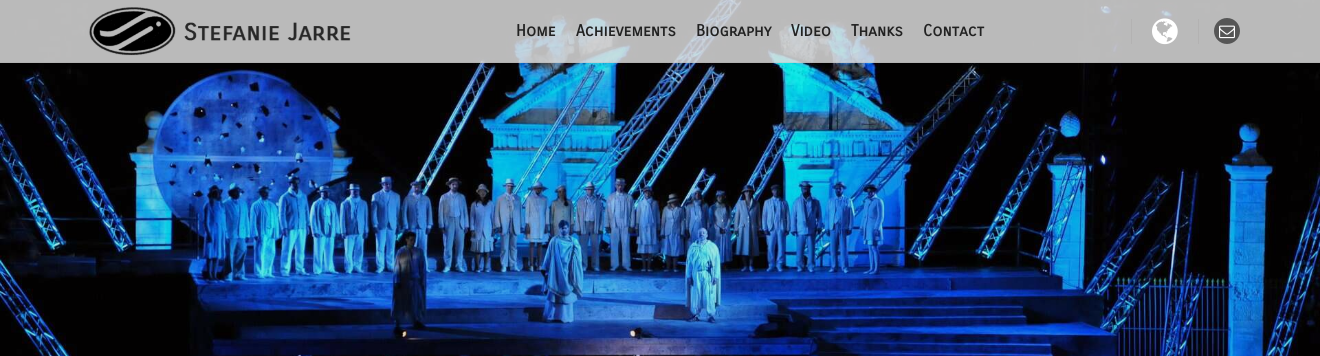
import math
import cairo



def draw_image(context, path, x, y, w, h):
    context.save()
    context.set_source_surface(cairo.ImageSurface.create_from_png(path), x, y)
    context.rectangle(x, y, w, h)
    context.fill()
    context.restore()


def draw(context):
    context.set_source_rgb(1, 1, 1)
    context.paint()
    draw_image(context, "images/1.png", 0, 0, 1320, 356)
    context.set_source_rgba(224 / 255, 224 / 255, 224 / 255, 0.83)
    context.rectangle(0, 0, 1320, 63)
    context.fill()
    context.set_source_rgba(58 / 255, 58 / 255, 58 / 255, 0.06)
    context.rectangle(0, 62, 1320, 1)
    context.fill()
    draw_image(context, "images/2.png", 89, 7, 262, 49)
    context.set_source_rgb(179 / 255, 178 / 255, 178 / 255)
    context.rectangle(1131, 19, 1, 25)
    context.fill()
    draw_image(context, "images/3.png", 1152, 18, 26, 27)
    context.rectangle(1198, 19, 1, 25)
    context.fill()
    context.set_source_rgb(86 / 255, 86 / 255, 86 / 255)
    context.arc(1227, 31, 13, 0, 2 * math.pi)
    context.fill()
    draw_image(context, "images/4.png", 1219, 25, 16, 14)
    context.select_font_face("Carrois Gothic SC", cairo.FontSlant.NORMAL, cairo.FontWeight.BOLD)
    context.set_font_size(16)
    context.set_source_rgb(34 / 255, 34 / 255, 34 / 255)
    context.move_to(516, 36)
    context.show_text("Home")
    context.move_to(576, 36)
    context.show_text("Achievements")
    context.move_to(696, 36)
    context.show_text("Biography")
    context.move_to(791, 36)
    context.show_text("Video")
    context.move_to(851, 36)
    context.show_text("Thanks")
    context.move_to(923, 36)
    context.show_text("Contact")


surface = cairo.ImageSurface(cairo.Format.RGB24, 1320, 356)
context = cairo.Context(surface)
options = cairo.FontOptions()
options.set_hint_metrics(cairo.HintMetrics.OFF)
options.set_hint_style(cairo.HintStyle.NONE)
context.set_font_options(options)
context.set_miter_limit(4)
draw(context)
surface.write_to_png("out.png")
